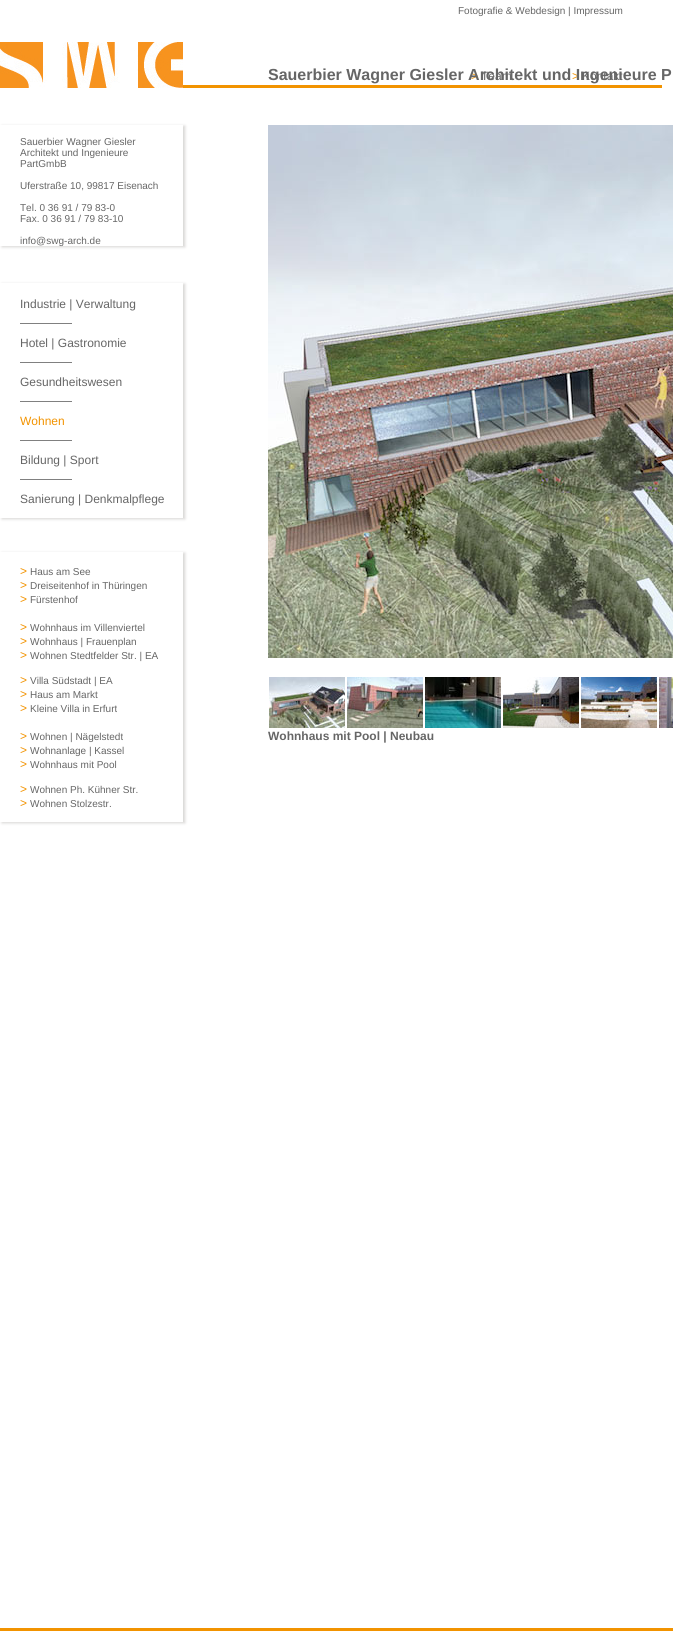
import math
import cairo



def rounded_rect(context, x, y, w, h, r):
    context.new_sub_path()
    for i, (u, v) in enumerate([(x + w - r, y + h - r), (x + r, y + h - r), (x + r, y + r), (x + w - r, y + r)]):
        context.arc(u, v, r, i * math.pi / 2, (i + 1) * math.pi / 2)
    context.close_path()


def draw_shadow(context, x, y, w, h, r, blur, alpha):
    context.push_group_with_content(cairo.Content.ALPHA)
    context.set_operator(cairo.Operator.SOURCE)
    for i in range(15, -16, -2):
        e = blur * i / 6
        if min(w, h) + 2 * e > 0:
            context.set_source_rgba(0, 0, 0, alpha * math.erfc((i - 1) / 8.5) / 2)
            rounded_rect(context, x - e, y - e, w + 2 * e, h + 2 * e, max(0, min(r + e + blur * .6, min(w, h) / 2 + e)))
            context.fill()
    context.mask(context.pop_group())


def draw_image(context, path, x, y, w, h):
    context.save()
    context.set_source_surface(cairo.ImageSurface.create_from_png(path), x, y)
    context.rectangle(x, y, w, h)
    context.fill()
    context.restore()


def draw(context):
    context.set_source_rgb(1, 1, 1)
    context.paint()
    draw_image(context, "images/1.png", 0, 42, 183, 46)
    context.set_source_rgb(242 / 255, 147 / 255, 0)
    context.rectangle(183, 85, 479, 3)
    context.fill()
    context.save()
    context.set_fill_rule(cairo.FillRule.EVEN_ODD)
    context.new_path()
    context.move_to(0, 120)
    context.line_to(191, 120)
    context.line_to(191, 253)
    context.line_to(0, 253)
    context.close_path()
    context.move_to(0, 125)
    context.line_to(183, 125)
    context.line_to(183, 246)
    context.line_to(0, 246)
    context.close_path()
    context.clip()
    context.set_source_rgb(214 / 255, 213 / 255, 211 / 255)
    draw_shadow(context, 2, 126, 183, 121, 0, 1.5, 1)
    context.restore()
    draw_image(context, "images/2.png", 268, 125, 405, 533)
    context.save()
    context.set_fill_rule(cairo.FillRule.EVEN_ODD)
    context.new_path()
    context.move_to(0, 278)
    context.line_to(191, 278)
    context.line_to(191, 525)
    context.line_to(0, 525)
    context.close_path()
    context.move_to(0, 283)
    context.line_to(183, 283)
    context.line_to(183, 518)
    context.line_to(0, 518)
    context.close_path()
    context.clip()
    context.set_source_rgb(214 / 255, 213 / 255, 211 / 255)
    draw_shadow(context, 2, 284, 183, 235, 0, 1.5, 1)
    context.restore()
    context.set_source_rgb(128 / 255, 128 / 255, 128 / 255)
    context.rectangle(20, 323, 52, 1)
    context.fill()
    context.rectangle(20, 362, 52, 1)
    context.fill()
    context.rectangle(20, 401, 52, 1)
    context.fill()
    context.rectangle(20, 440, 52, 1)
    context.fill()
    context.rectangle(20, 479, 52, 1)
    context.fill()
    context.save()
    context.set_fill_rule(cairo.FillRule.EVEN_ODD)
    context.new_path()
    context.move_to(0, 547)
    context.line_to(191, 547)
    context.line_to(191, 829)
    context.line_to(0, 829)
    context.close_path()
    context.move_to(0, 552)
    context.line_to(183, 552)
    context.line_to(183, 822)
    context.line_to(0, 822)
    context.close_path()
    context.clip()
    context.set_source_rgb(214 / 255, 213 / 255, 211 / 255)
    draw_shadow(context, 2, 553, 183, 270, 0, 1.5, 1)
    context.restore()
    draw_image(context, "images/3.png", 269, 677, 76, 51)
    draw_image(context, "images/4.png", 347, 677, 76, 51)
    draw_image(context, "images/5.png", 425, 677, 76, 51)
    draw_image(context, "images/6.png", 503, 677, 76, 51)
    draw_image(context, "images/7.png", 581, 677, 76, 51)
    draw_image(context, "images/8.png", 659, 677, 14, 51)
    context.set_source_rgb(242 / 255, 147 / 255, 0)
    context.rectangle(0, 1628, 673, 3)
    context.fill()
    context.select_font_face("Liberation Sans")
    context.set_font_size(10)
    context.set_source_rgb(102 / 255, 102 / 255, 102 / 255)
    context.move_to(458, 14)
    context.show_text("Fotografie & Webdesign | Impressum")
    context.set_font_size(12)
    context.set_source_rgb(242 / 255, 147 / 255, 0)
    context.move_to(471, 80)
    context.show_text(">")
    context.set_source_rgb(102 / 255, 102 / 255, 102 / 255)
    context.move_to(481, 80)
    context.show_text("Team")
    context.set_source_rgb(242 / 255, 147 / 255, 0)
    context.move_to(572, 80)
    context.show_text(">")
    context.set_source_rgb(102 / 255, 102 / 255, 102 / 255)
    context.move_to(582, 80)
    context.show_text("Kontakt")
    context.select_font_face("Liberation Sans", cairo.FontSlant.NORMAL, cairo.FontWeight.BOLD)
    context.set_font_size(16)
    context.move_to(268, 80)
    context.show_text("Sauerbier Wagner Giesler Architekt und Ingenieure P")
    context.select_font_face("Liberation Sans")
    context.set_font_size(10)
    context.move_to(20, 145)
    context.show_text("Sauerbier Wagner Giesler")
    context.move_to(20, 156)
    context.show_text("Architekt und Ingenieure")
    context.move_to(20, 167)
    context.show_text("PartGmbB")
    context.move_to(20, 189)
    context.show_text("Uferstraße 10, 99817 Eisenach")
    context.move_to(20, 211)
    context.show_text("Tel. 0 36 91 / 79 83-0")
    context.move_to(20, 222)
    context.show_text("Fax. 0 36 91 / 79 83-10")
    context.move_to(20, 244)
    context.show_text("info@swg-arch.de")
    context.set_font_size(12)
    context.move_to(20, 308)
    context.show_text("Industrie | Verwaltung")
    context.move_to(20, 347)
    context.show_text("Hotel | Gastronomie")
    context.move_to(20, 386)
    context.show_text("Gesundheitswesen")
    context.set_source_rgb(242 / 255, 147 / 255, 0)
    context.move_to(20, 425)
    context.show_text("Wohnen")
    context.set_source_rgb(102 / 255, 102 / 255, 102 / 255)
    context.move_to(20, 464)
    context.show_text("Bildung | Sport")
    context.move_to(20, 503)
    context.show_text("Sanierung | Denkmalpflege")
    context.set_source_rgb(242 / 255, 147 / 255, 0)
    context.move_to(20, 575)
    context.show_text(">")
    context.set_font_size(10)
    context.set_source_rgb(102 / 255, 102 / 255, 102 / 255)
    context.move_to(30, 575)
    context.show_text("Haus am See")
    context.set_font_size(12)
    context.set_source_rgb(242 / 255, 147 / 255, 0)
    context.move_to(20, 589)
    context.show_text(">")
    context.set_font_size(10)
    context.set_source_rgb(102 / 255, 102 / 255, 102 / 255)
    context.move_to(30, 589)
    context.show_text("Dreiseitenhof in Thüringen")
    context.set_font_size(12)
    context.set_source_rgb(242 / 255, 147 / 255, 0)
    context.move_to(20, 603)
    context.show_text(">")
    context.set_font_size(10)
    context.set_source_rgb(102 / 255, 102 / 255, 102 / 255)
    context.move_to(30, 603)
    context.show_text("Fürstenhof")
    context.set_font_size(12)
    context.set_source_rgb(242 / 255, 147 / 255, 0)
    context.move_to(20, 631)
    context.show_text(">")
    context.set_font_size(10)
    context.set_source_rgb(102 / 255, 102 / 255, 102 / 255)
    context.move_to(30, 631)
    context.show_text("Wohnhaus im Villenviertel")
    context.set_font_size(12)
    context.set_source_rgb(242 / 255, 147 / 255, 0)
    context.move_to(20, 645)
    context.show_text(">")
    context.set_font_size(10)
    context.set_source_rgb(102 / 255, 102 / 255, 102 / 255)
    context.move_to(30, 645)
    context.show_text("Wohnhaus | Frauenplan")
    context.set_font_size(12)
    context.set_source_rgb(242 / 255, 147 / 255, 0)
    context.move_to(20, 659)
    context.show_text(">")
    context.set_font_size(10)
    context.set_source_rgb(102 / 255, 102 / 255, 102 / 255)
    context.move_to(30, 659)
    context.show_text("Wohnen Stedtfelder Str. | EA")
    context.set_font_size(12)
    context.set_source_rgb(242 / 255, 147 / 255, 0)
    context.move_to(20, 684)
    context.show_text(">")
    context.set_font_size(10)
    context.set_source_rgb(102 / 255, 102 / 255, 102 / 255)
    context.move_to(30, 684)
    context.show_text("Villa Südstadt | EA")
    context.set_font_size(12)
    context.set_source_rgb(242 / 255, 147 / 255, 0)
    context.move_to(20, 698)
    context.show_text(">")
    context.set_font_size(10)
    context.set_source_rgb(102 / 255, 102 / 255, 102 / 255)
    context.move_to(30, 698)
    context.show_text("Haus am Markt")
    context.set_font_size(12)
    context.set_source_rgb(242 / 255, 147 / 255, 0)
    context.move_to(20, 712)
    context.show_text(">")
    context.set_font_size(10)
    context.set_source_rgb(102 / 255, 102 / 255, 102 / 255)
    context.move_to(30, 712)
    context.show_text("Kleine Villa in Erfurt")
    context.set_font_size(12)
    context.set_source_rgb(242 / 255, 147 / 255, 0)
    context.move_to(20, 740)
    context.show_text(">")
    context.set_font_size(10)
    context.set_source_rgb(102 / 255, 102 / 255, 102 / 255)
    context.move_to(30, 740)
    context.show_text("Wohnen | Nägelstedt")
    context.set_font_size(12)
    context.set_source_rgb(242 / 255, 147 / 255, 0)
    context.move_to(20, 754)
    context.show_text(">")
    context.set_font_size(10)
    context.set_source_rgb(102 / 255, 102 / 255, 102 / 255)
    context.move_to(30, 754)
    context.show_text("Wohnanlage | Kassel")
    context.set_font_size(12)
    context.set_source_rgb(242 / 255, 147 / 255, 0)
    context.move_to(20, 768)
    context.show_text(">")
    context.set_font_size(10)
    context.set_source_rgb(102 / 255, 102 / 255, 102 / 255)
    context.move_to(30, 768)
    context.show_text("Wohnhaus mit Pool")
    context.set_font_size(12)
    context.set_source_rgb(242 / 255, 147 / 255, 0)
    context.move_to(20, 793)
    context.show_text(">")
    context.set_font_size(10)
    context.set_source_rgb(102 / 255, 102 / 255, 102 / 255)
    context.move_to(30, 793)
    context.show_text("Wohnen Ph. Kühner Str.")
    context.set_font_size(12)
    context.set_source_rgb(242 / 255, 147 / 255, 0)
    context.move_to(20, 807)
    context.show_text(">")
    context.set_font_size(10)
    context.set_source_rgb(102 / 255, 102 / 255, 102 / 255)
    context.move_to(30, 807)
    context.show_text("Wohnen Stolzestr.")
    context.select_font_face("Liberation Sans", cairo.FontSlant.NORMAL, cairo.FontWeight.BOLD)
    context.set_font_size(12)
    context.move_to(268, 740)
    context.show_text("Wohnhaus mit Pool | Neubau")


surface = cairo.ImageSurface(cairo.Format.RGB24, 673, 1631)
context = cairo.Context(surface)
options = cairo.FontOptions()
options.set_hint_metrics(cairo.HintMetrics.OFF)
options.set_hint_style(cairo.HintStyle.NONE)
context.set_font_options(options)
context.set_miter_limit(4)
draw(context)
surface.write_to_png("out.png")
